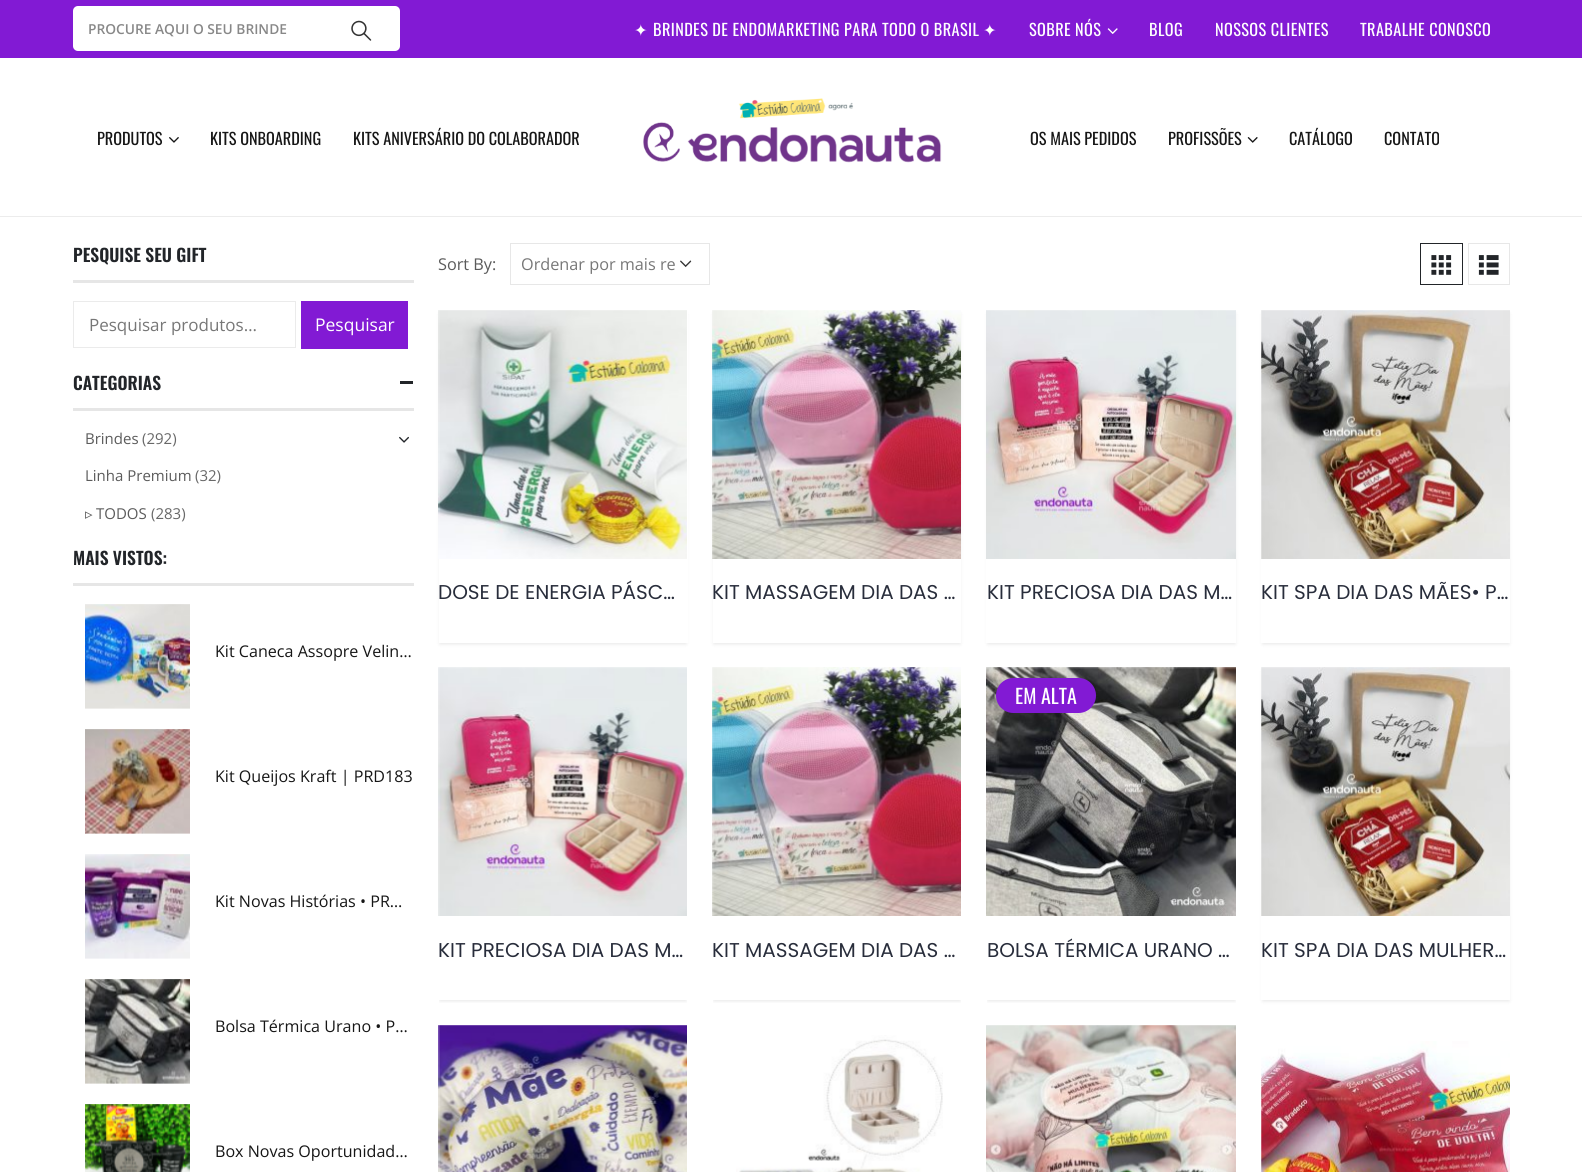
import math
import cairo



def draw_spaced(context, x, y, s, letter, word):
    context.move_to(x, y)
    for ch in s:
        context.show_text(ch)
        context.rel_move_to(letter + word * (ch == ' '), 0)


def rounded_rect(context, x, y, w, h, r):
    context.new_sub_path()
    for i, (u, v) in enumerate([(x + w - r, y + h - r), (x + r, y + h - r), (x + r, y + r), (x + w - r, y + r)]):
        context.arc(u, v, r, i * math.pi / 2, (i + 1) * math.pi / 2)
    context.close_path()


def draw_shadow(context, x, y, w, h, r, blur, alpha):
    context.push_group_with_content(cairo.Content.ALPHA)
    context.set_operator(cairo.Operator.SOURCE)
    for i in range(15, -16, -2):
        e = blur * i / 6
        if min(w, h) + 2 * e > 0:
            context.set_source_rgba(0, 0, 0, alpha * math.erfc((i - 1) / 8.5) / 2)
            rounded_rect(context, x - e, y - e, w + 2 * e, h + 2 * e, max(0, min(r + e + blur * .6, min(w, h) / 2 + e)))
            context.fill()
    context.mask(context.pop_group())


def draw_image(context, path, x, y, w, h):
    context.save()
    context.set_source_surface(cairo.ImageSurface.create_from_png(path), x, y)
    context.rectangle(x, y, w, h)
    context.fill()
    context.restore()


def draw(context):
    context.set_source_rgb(1, 1, 1)
    context.paint()
    context.set_source_rgb(130 / 255, 26 / 255, 212 / 255)
    context.rectangle(0, 0, 1582, 58)
    context.fill()
    context.set_source_rgb(1, 1, 1)
    rounded_rect(context, 73, 6, 327, 45, 5)
    context.fill()
    draw_image(context, "images/1.png", 351, 20, 21, 21)
    draw_image(context, "images/2.png", 1107, 28, 11, 6)
    context.set_source_rgb(236 / 255, 236 / 255, 236 / 255)
    context.rectangle(0, 216, 1582, 1)
    context.fill()
    draw_image(context, "images/3.png", 169, 137, 10, 6)
    draw_image(context, "images/4.png", 643, 98, 299, 65)
    draw_image(context, "images/5.png", 1247, 137, 11, 6)
    context.set_source_rgb(230 / 255, 230 / 255, 230 / 255)
    context.rectangle(73, 280, 341, 3)
    context.fill()
    context.rectangle(73.5, 301.5, 222, 46)
    context.set_source_rgb(235 / 255, 235 / 255, 235 / 255)
    context.set_line_width(1)
    context.stroke()
    context.set_source_rgb(130 / 255, 26 / 255, 212 / 255)
    context.rectangle(301, 301, 107, 48)
    context.fill()
    context.set_source_rgb(230 / 255, 230 / 255, 230 / 255)
    context.rectangle(73, 408, 341, 3)
    context.fill()
    context.set_source_rgb(34 / 255, 37 / 255, 41 / 255)
    context.rectangle(400, 381, 13, 3)
    context.fill()
    draw_image(context, "images/6.png", 399, 436, 10, 7)
    context.set_source_rgb(230 / 255, 230 / 255, 230 / 255)
    context.rectangle(73, 583, 341, 3)
    context.fill()
    draw_image(context, "images/7.png", 85, 604, 105, 105)
    draw_image(context, "images/8.png", 85, 729, 105, 105)
    draw_image(context, "images/9.png", 85, 854, 105, 105)
    draw_image(context, "images/10.png", 85, 979, 105, 105)
    draw_image(context, "images/11.png", 85, 1104, 105, 68)
    draw_image(context, "images/12.png", 680, 260, 12, 8)
    context.rectangle(510.5, 243.5, 199, 41)
    context.set_source_rgb(231 / 255, 231 / 255, 231 / 255)
    context.stroke()
    context.rectangle(1420.5, 243.5, 42, 41)
    context.set_source_rgb(34 / 255, 37 / 255, 41 / 255)
    context.stroke()
    draw_image(context, "images/13.png", 1431, 255, 21, 20)
    context.rectangle(1468.5, 243.5, 41, 41)
    context.set_source_rgb(231 / 255, 231 / 255, 231 / 255)
    context.stroke()
    draw_image(context, "images/14.png", 1478, 255, 21, 20)
    context.save()
    context.set_fill_rule(cairo.FillRule.EVEN_ODD)
    context.new_path()
    context.move_to(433, 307)
    context.line_to(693, 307)
    context.line_to(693, 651)
    context.line_to(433, 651)
    context.close_path()
    context.move_to(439, 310)
    context.line_to(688, 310)
    context.line_to(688, 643)
    context.line_to(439, 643)
    context.close_path()
    context.clip()
    context.set_source_rgb(0, 0, 0)
    draw_shadow(context, 440, 314, 246, 330, 0, 2, 0.1)
    context.restore()
    context.set_source_rgb(1, 1, 1)
    context.rectangle(687, 316, 1, 243)
    context.fill()
    draw_image(context, "images/15.png", 438, 310, 249, 249)
    context.save()
    context.set_fill_rule(cairo.FillRule.EVEN_ODD)
    context.new_path()
    context.move_to(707, 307)
    context.line_to(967, 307)
    context.line_to(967, 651)
    context.line_to(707, 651)
    context.close_path()
    context.move_to(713, 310)
    context.line_to(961, 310)
    context.line_to(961, 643)
    context.line_to(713, 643)
    context.close_path()
    context.clip()
    context.set_source_rgb(0, 0, 0)
    draw_shadow(context, 714, 314, 246, 330, 0, 2, 0.1)
    context.restore()
    draw_image(context, "images/16.png", 712, 310, 249, 249)
    context.save()
    context.set_fill_rule(cairo.FillRule.EVEN_ODD)
    context.new_path()
    context.move_to(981, 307)
    context.line_to(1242, 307)
    context.line_to(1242, 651)
    context.line_to(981, 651)
    context.close_path()
    context.move_to(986, 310)
    context.line_to(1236, 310)
    context.line_to(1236, 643)
    context.line_to(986, 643)
    context.close_path()
    context.clip()
    context.set_source_rgb(0, 0, 0)
    draw_shadow(context, 988, 314, 247, 330, 0, 2, 0.1)
    context.restore()
    draw_image(context, "images/17.png", 986, 310, 250, 249)
    context.save()
    context.set_fill_rule(cairo.FillRule.EVEN_ODD)
    context.new_path()
    context.move_to(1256, 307)
    context.line_to(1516, 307)
    context.line_to(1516, 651)
    context.line_to(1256, 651)
    context.close_path()
    context.move_to(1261, 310)
    context.line_to(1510, 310)
    context.line_to(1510, 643)
    context.line_to(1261, 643)
    context.close_path()
    context.clip()
    context.set_source_rgb(0, 0, 0)
    draw_shadow(context, 1263, 314, 246, 330, 0, 2, 0.1)
    context.restore()
    draw_image(context, "images/18.png", 1261, 310, 249, 249)
    context.save()
    context.rectangle(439, 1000, 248, 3)
    context.clip()
    context.set_source_rgb(0, 0, 0)
    draw_shadow(context, 440, 671, 246, 330, 0, 2, 0.1)
    context.restore()
    context.rectangle(687, 673, 1, 243)
    context.fill()
    draw_image(context, "images/19.png", 438, 667, 249, 249)
    context.save()
    context.rectangle(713, 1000, 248, 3)
    context.clip()
    context.set_source_rgb(0, 0, 0)
    draw_shadow(context, 714, 671, 246, 330, 0, 2, 0.1)
    context.restore()
    draw_image(context, "images/20.png", 712, 667, 249, 249)
    context.save()
    context.rectangle(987, 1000, 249, 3)
    context.clip()
    context.set_source_rgb(0, 0, 0)
    draw_shadow(context, 988, 671, 247, 330, 0, 2, 0.1)
    context.restore()
    draw_image(context, "images/21.png", 986, 667, 250, 249)
    context.set_source_rgb(130 / 255, 26 / 255, 212 / 255)
    rounded_rect(context, 996, 678, 100, 35, 17.5)
    context.fill()
    context.save()
    context.set_fill_rule(cairo.FillRule.EVEN_ODD)
    context.new_path()
    context.move_to(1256, 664)
    context.line_to(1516, 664)
    context.line_to(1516, 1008)
    context.line_to(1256, 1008)
    context.close_path()
    context.move_to(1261, 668)
    context.line_to(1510, 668)
    context.line_to(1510, 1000)
    context.line_to(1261, 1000)
    context.close_path()
    context.clip()
    context.set_source_rgb(0, 0, 0)
    draw_shadow(context, 1263, 671, 246, 330, 0, 2, 0.1)
    context.restore()
    draw_image(context, "images/22.png", 1261, 667, 249, 249)
    draw_image(context, "images/23.png", 438, 1025, 249, 147)
    draw_image(context, "images/24.png", 736, 1035, 207, 137)
    draw_image(context, "images/25.png", 986, 1025, 250, 147)
    draw_image(context, "images/26.png", 1261, 1041, 249, 131)
    context.select_font_face("Open Sans SemiBold")
    context.set_font_size(13.75)
    context.set_source_rgb(136 / 255, 136 / 255, 136 / 255)
    context.move_to(88, 34)
    context.show_text("PROCURE AQUI O SEU BRINDE")
    context.select_font_face("DejaVu Sans")
    context.set_font_size(16.25)
    context.set_source_rgb(1, 1, 1)
    draw_spaced(context, 634, 36, "✦", 0.4, 0)
    context.select_font_face("Oswald")
    draw_spaced(context, 653, 36, "BRINDES DE ENDOMARKETING PARA TODO O BRASIL", 0.4, 0)
    context.select_font_face("DejaVu Sans")
    draw_spaced(context, 983, 36, "✦", 0.4, 0)
    context.select_font_face("Oswald")
    draw_spaced(context, 1029, 36, "SOBRE NÓS", 0.4, 0)
    draw_spaced(context, 1149, 36, "BLOG", 0.4, 0)
    draw_spaced(context, 1215, 36, "NOSSOS CLIENTES", 0.4, 0)
    draw_spaced(context, 1360, 36, "TRABALHE CONOSCO", 0.4, 0)
    context.set_source_rgb(22 / 255, 22 / 255, 22 / 255)
    context.move_to(97, 145)
    context.show_text("PRODUTOS")
    context.move_to(210, 145)
    context.show_text("KITS ONBOARDING")
    context.move_to(353, 145)
    context.show_text("KITS ANIVERSÁRIO DO COLABORADOR")
    context.move_to(1030, 145)
    context.show_text("OS MAIS PEDIDOS")
    context.move_to(1168, 145)
    context.show_text("PROFISSÕES")
    context.move_to(1289, 145)
    context.show_text("CATÁLOGO")
    context.move_to(1384, 145)
    context.show_text("CONTATO")
    context.select_font_face("Oswald SemiBold")
    context.set_font_size(17.5)
    context.set_source_rgb(34 / 255, 37 / 255, 41 / 255)
    context.move_to(73, 262)
    context.show_text("PESQUISE SEU GIFT")
    context.select_font_face("Open Sans")
    context.set_font_size(17)
    context.set_source_rgb(119 / 255, 119 / 255, 119 / 255)
    context.move_to(89, 331)
    context.show_text("Pesquisar produtos…")
    context.set_font_size(17.5)
    context.set_source_rgb(1, 1, 1)
    context.move_to(315, 331)
    context.show_text("Pesquisar")
    context.select_font_face("Oswald SemiBold")
    context.set_source_rgb(34 / 255, 37 / 255, 41 / 255)
    context.move_to(73, 390)
    context.show_text("CATEGORIAS")
    context.select_font_face("Open Sans")
    context.set_font_size(15)
    context.set_source_rgb(91 / 255, 91 / 255, 91 / 255)
    context.move_to(85, 444)
    context.show_text("Brindes")
    context.set_source_rgb(104 / 255, 104 / 255, 104 / 255)
    context.move_to(142, 444)
    context.show_text("(292)")
    context.set_source_rgb(91 / 255, 91 / 255, 91 / 255)
    context.move_to(85, 481)
    context.show_text("Linha Premium")
    context.set_source_rgb(104 / 255, 104 / 255, 104 / 255)
    context.move_to(195, 481)
    context.show_text("(32)")
    context.select_font_face("DejaVu Sans")
    context.set_source_rgb(91 / 255, 91 / 255, 91 / 255)
    context.move_to(85, 519)
    context.show_text("▹")
    context.select_font_face("Open Sans")
    context.move_to(96, 519)
    context.show_text("TODOS")
    context.set_source_rgb(104 / 255, 104 / 255, 104 / 255)
    context.move_to(151, 519)
    context.show_text("(283)")
    context.select_font_face("Oswald SemiBold")
    context.set_font_size(17.5)
    context.set_source_rgb(34 / 255, 37 / 255, 41 / 255)
    context.move_to(73, 565)
    context.show_text("MAIS VISTOS:")
    context.select_font_face("Open Sans")
    context.set_font_size(16.1)
    context.set_source_rgb(22 / 255, 22 / 255, 22 / 255)
    context.move_to(215, 657)
    context.show_text("Kit Caneca Assopre Velin…")
    context.move_to(215, 782)
    context.show_text("Kit Queijos Kraft | PRD183")
    context.move_to(215, 907)
    context.show_text("Kit Novas Histórias • PR…")
    context.move_to(215, 1032)
    context.show_text("Bolsa Térmica Urano • P…")
    context.move_to(215, 1157)
    context.show_text("Box Novas Oportunidad…")
    context.set_font_size(16.25)
    context.set_source_rgb(91 / 255, 91 / 255, 91 / 255)
    context.move_to(438, 270)
    context.show_text("Sort By:")
    context.set_source_rgb(119 / 255, 119 / 255, 119 / 255)
    context.move_to(521, 270)
    context.show_text("Ordenar por mais re")
    context.select_font_face("Poppins")
    context.set_font_size(20)
    context.set_source_rgb(40 / 255, 45 / 255, 59 / 255)
    context.move_to(438, 599)
    context.show_text("DOSE DE ENERGIA PÁSC…")
    context.move_to(712, 599)
    context.show_text("KIT MASSAGEM DIA DAS …")
    context.move_to(987, 599)
    context.show_text("KIT PRECIOSA DIA DAS M…")
    context.move_to(1261, 599)
    context.show_text("KIT SPA DIA DAS MÃES• P…")
    context.move_to(438, 957)
    context.show_text("KIT PRECIOSA DIA DAS M…")
    context.move_to(712, 957)
    context.show_text("KIT MASSAGEM DIA DAS …")
    context.select_font_face("Oswald")
    context.set_source_rgb(1, 1, 1)
    context.move_to(1015, 704)
    context.show_text("EM ALTA")
    context.select_font_face("Poppins")
    context.set_source_rgb(40 / 255, 45 / 255, 59 / 255)
    context.move_to(987, 957)
    context.show_text("BOLSA TÉRMICA URANO …")
    context.move_to(1261, 957)
    context.show_text("KIT SPA DIA DAS MULHER…")


surface = cairo.ImageSurface(cairo.Format.RGB24, 1582, 1172)
context = cairo.Context(surface)
options = cairo.FontOptions()
options.set_hint_metrics(cairo.HintMetrics.OFF)
options.set_hint_style(cairo.HintStyle.NONE)
context.set_font_options(options)
context.set_miter_limit(4)
draw(context)
surface.write_to_png("out.png")
